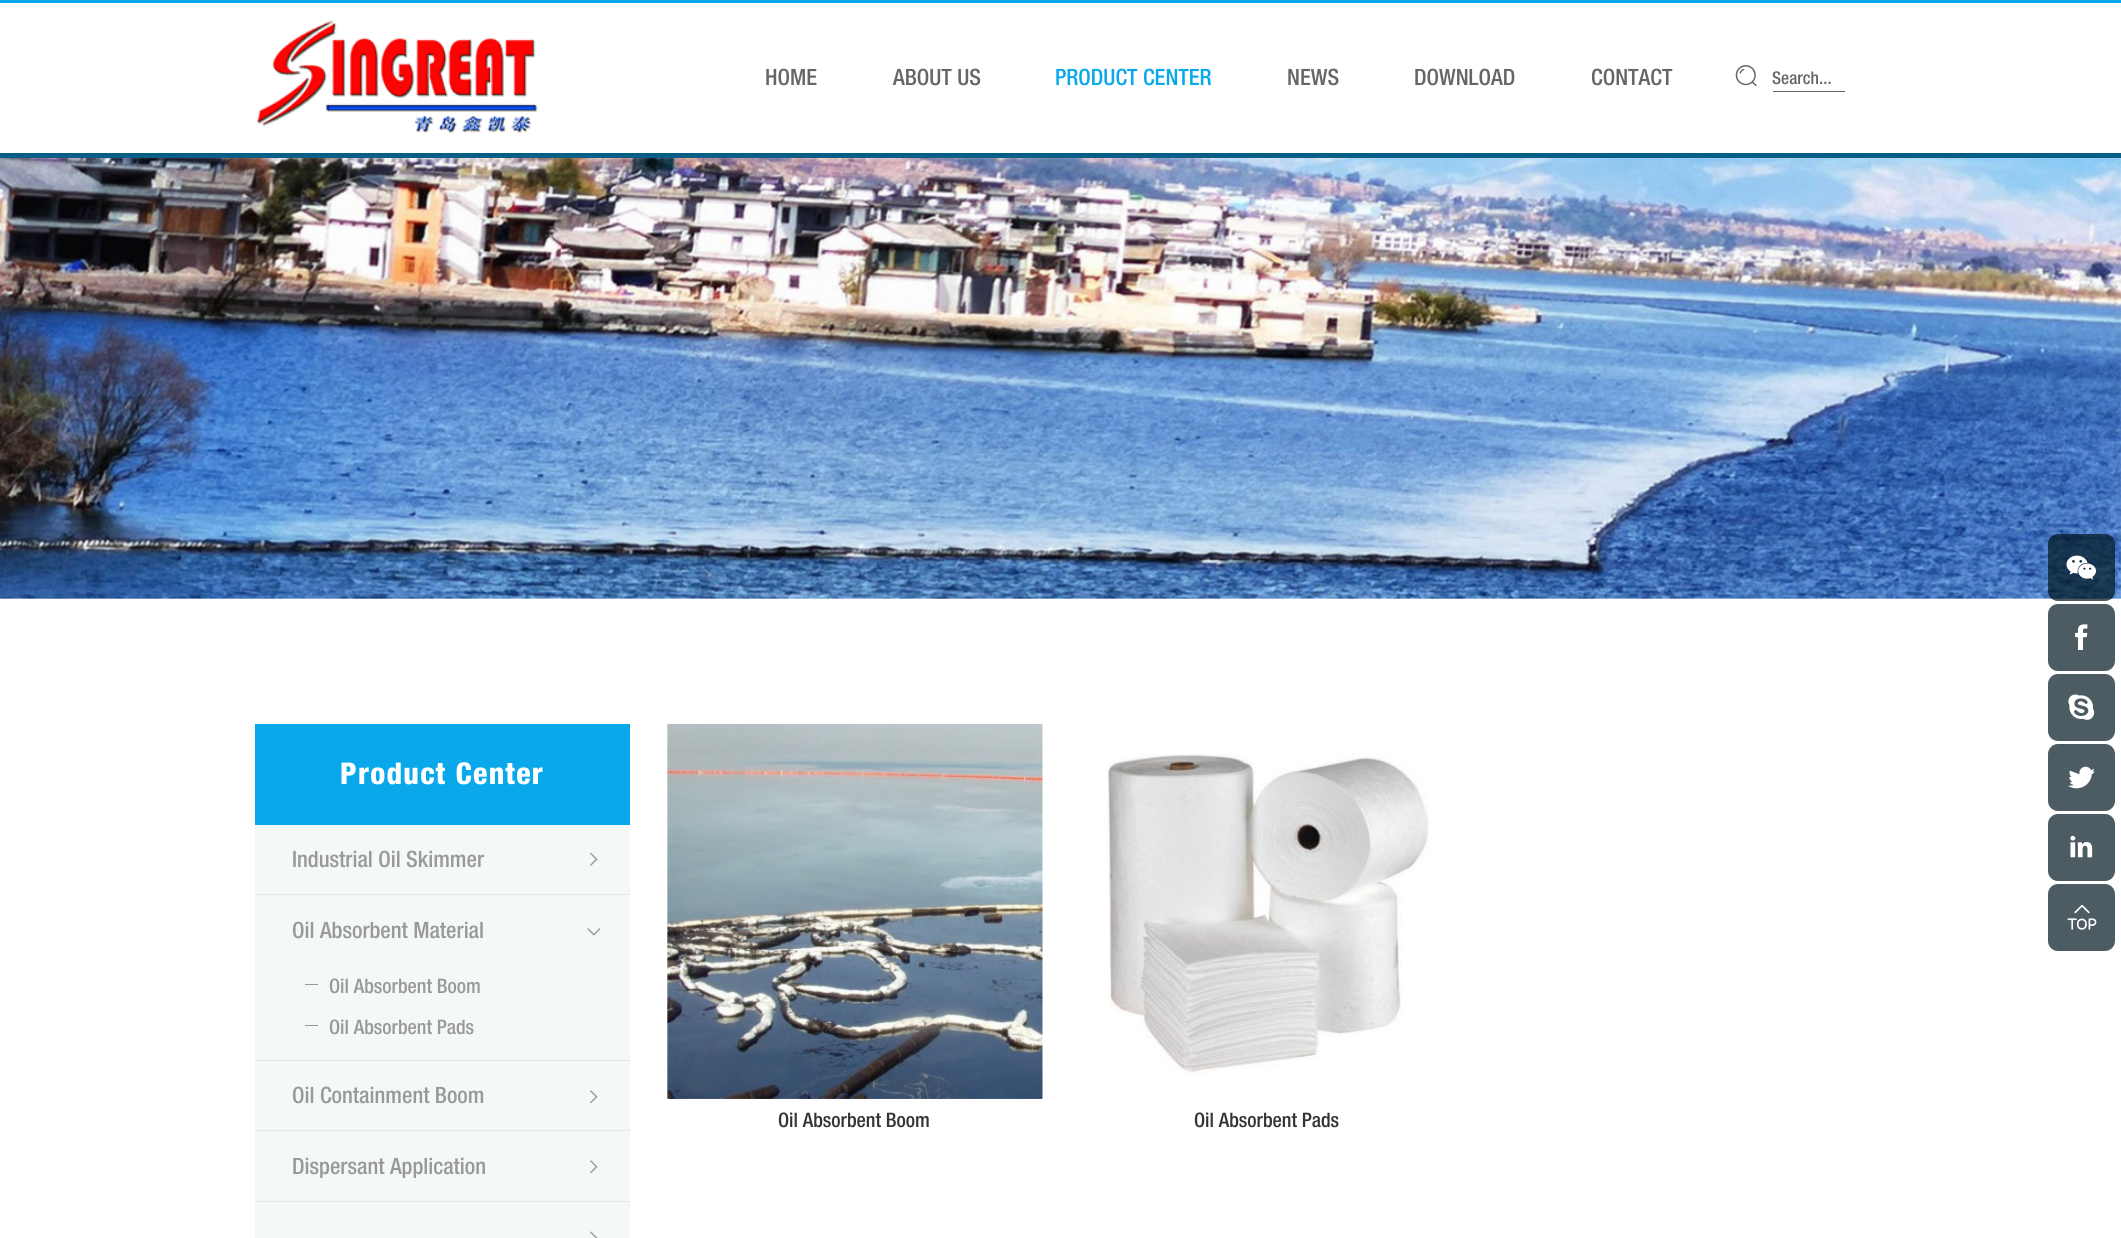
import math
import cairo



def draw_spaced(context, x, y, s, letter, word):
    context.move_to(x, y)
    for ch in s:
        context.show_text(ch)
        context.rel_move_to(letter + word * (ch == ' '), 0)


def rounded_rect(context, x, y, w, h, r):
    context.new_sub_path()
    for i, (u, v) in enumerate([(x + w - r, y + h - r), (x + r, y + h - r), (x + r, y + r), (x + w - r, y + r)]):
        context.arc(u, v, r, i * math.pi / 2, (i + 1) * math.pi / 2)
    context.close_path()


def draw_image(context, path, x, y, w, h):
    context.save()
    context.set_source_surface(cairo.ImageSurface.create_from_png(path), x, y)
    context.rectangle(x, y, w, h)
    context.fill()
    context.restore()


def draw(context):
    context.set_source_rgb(1, 1, 1)
    context.paint()
    context.set_source_rgb(9 / 255, 168 / 255, 234 / 255)
    context.rectangle(0, 0, 2121, 3)
    context.fill()
    context.set_source_rgb(5 / 255, 94 / 255, 133 / 255)
    context.rectangle(0, 153, 2121, 5)
    context.fill()
    draw_image(context, "images/1.png", 257, 20, 281, 113)
    draw_image(context, "images/2.png", 1735, 65, 22, 22)
    context.set_source_rgb(102 / 255, 102 / 255, 102 / 255)
    context.rectangle(1773, 91, 72, 1)
    context.fill()
    draw_image(context, "images/3.png", 0, 158, 2121, 441)
    context.set_source_rgb(244 / 255, 248 / 255, 249 / 255)
    context.rectangle(255, 825, 375, 413)
    context.fill()
    context.set_source_rgb(9 / 255, 168 / 255, 234 / 255)
    context.rectangle(255, 724, 375, 101)
    context.fill()
    context.set_source_rgb(229 / 255, 229 / 255, 229 / 255)
    context.rectangle(255, 894, 375, 1)
    context.fill()
    draw_image(context, "images/4.png", 590, 852, 8, 14)
    context.rectangle(255, 1060, 375, 1)
    context.fill()
    draw_image(context, "images/5.png", 587, 928, 14, 8)
    context.set_source_rgb(153 / 255, 153 / 255, 153 / 255)
    context.rectangle(305, 984, 13, 1)
    context.fill()
    context.rectangle(305, 1025, 13, 1)
    context.fill()
    context.set_source_rgb(229 / 255, 229 / 255, 229 / 255)
    context.rectangle(255, 1130, 375, 1)
    context.fill()
    draw_image(context, "images/6.png", 590, 1090, 8, 14)
    context.rectangle(255, 1201, 375, 1)
    context.fill()
    draw_image(context, "images/6.png", 590, 1160, 8, 14)
    draw_image(context, "images/7.png", 590, 1231, 8, 7)
    draw_image(context, "images/8.png", 667, 724, 376, 375)
    draw_image(context, "images/9.png", 667, 724, 376, 375)
    draw_image(context, "images/10.png", 1107, 754, 322, 320)
    context.set_source_rgba(1 / 255, 22 / 255, 31 / 255, 0.7)
    rounded_rect(context, 2048, 534, 67, 67, 10)
    context.fill()
    draw_image(context, "images/11.png", 2066, 555, 30, 25)
    context.set_source_rgb(77 / 255, 92 / 255, 98 / 255)
    rounded_rect(context, 2048, 604, 67, 67, 10)
    context.fill()
    draw_image(context, "images/12.png", 2075, 624, 13, 26)
    rounded_rect(context, 2048, 674, 67, 67, 10)
    context.fill()
    draw_image(context, "images/13.png", 2068, 694, 27, 26)
    rounded_rect(context, 2048, 744, 67, 67, 10)
    context.fill()
    draw_image(context, "images/14.png", 2068, 766, 27, 23)
    rounded_rect(context, 2048, 814, 67, 67, 10)
    context.fill()
    draw_image(context, "images/15.png", 2070, 835, 23, 23)
    rounded_rect(context, 2048, 884, 67, 67, 10)
    context.fill()
    draw_image(context, "images/16.png", 2067, 904, 30, 26)
    context.select_font_face("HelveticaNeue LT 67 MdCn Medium")
    context.set_font_size(22.5)
    context.set_source_rgb(102 / 255, 102 / 255, 102 / 255)
    context.move_to(765, 85)
    context.show_text("HOME")
    context.move_to(893, 85)
    context.show_text("ABOUT US")
    context.set_source_rgb(9 / 255, 168 / 255, 234 / 255)
    context.move_to(1055, 85)
    context.show_text("PRODUCT CENTER")
    context.set_source_rgb(102 / 255, 102 / 255, 102 / 255)
    context.move_to(1287, 85)
    context.show_text("NEWS")
    context.move_to(1414, 85)
    context.show_text("DOWNLOAD")
    context.move_to(1591, 85)
    context.show_text("CONTACT")
    context.set_font_size(17.5)
    context.move_to(1772, 84)
    context.show_text("Search...")
    context.select_font_face("HelveticaNeue LT 67 MdCn Black")
    context.set_font_size(30)
    context.set_source_rgb(1, 1, 1)
    draw_spaced(context, 340, 784, "Product Center", 1.25, 0)
    context.select_font_face("HelveticaNeue LT 67 MdCn Medium")
    context.set_font_size(22.5)
    context.set_source_rgb(153 / 255, 153 / 255, 153 / 255)
    context.move_to(292, 867)
    context.show_text("Industrial Oil Skimmer")
    context.move_to(292, 938)
    context.show_text("Oil Absorbent Material")
    context.set_font_size(20)
    context.move_to(329, 993)
    context.show_text("Oil Absorbent Boom")
    context.move_to(329, 1034)
    context.show_text("Oil Absorbent Pads")
    context.set_font_size(22.5)
    context.move_to(292, 1103)
    context.show_text("Oil Containment Boom")
    context.move_to(292, 1174)
    context.show_text("Dispersant Application")
    context.set_font_size(20)
    context.set_source_rgb(51 / 255, 51 / 255, 51 / 255)
    context.move_to(778, 1127)
    context.show_text("Oil Absorbent Boom")
    context.move_to(1194, 1127)
    context.show_text("Oil Absorbent Pads")


surface = cairo.ImageSurface(cairo.Format.RGB24, 2121, 1238)
context = cairo.Context(surface)
options = cairo.FontOptions()
options.set_hint_metrics(cairo.HintMetrics.OFF)
options.set_hint_style(cairo.HintStyle.NONE)
context.set_font_options(options)
context.set_miter_limit(4)
draw(context)
surface.write_to_png("out.png")
